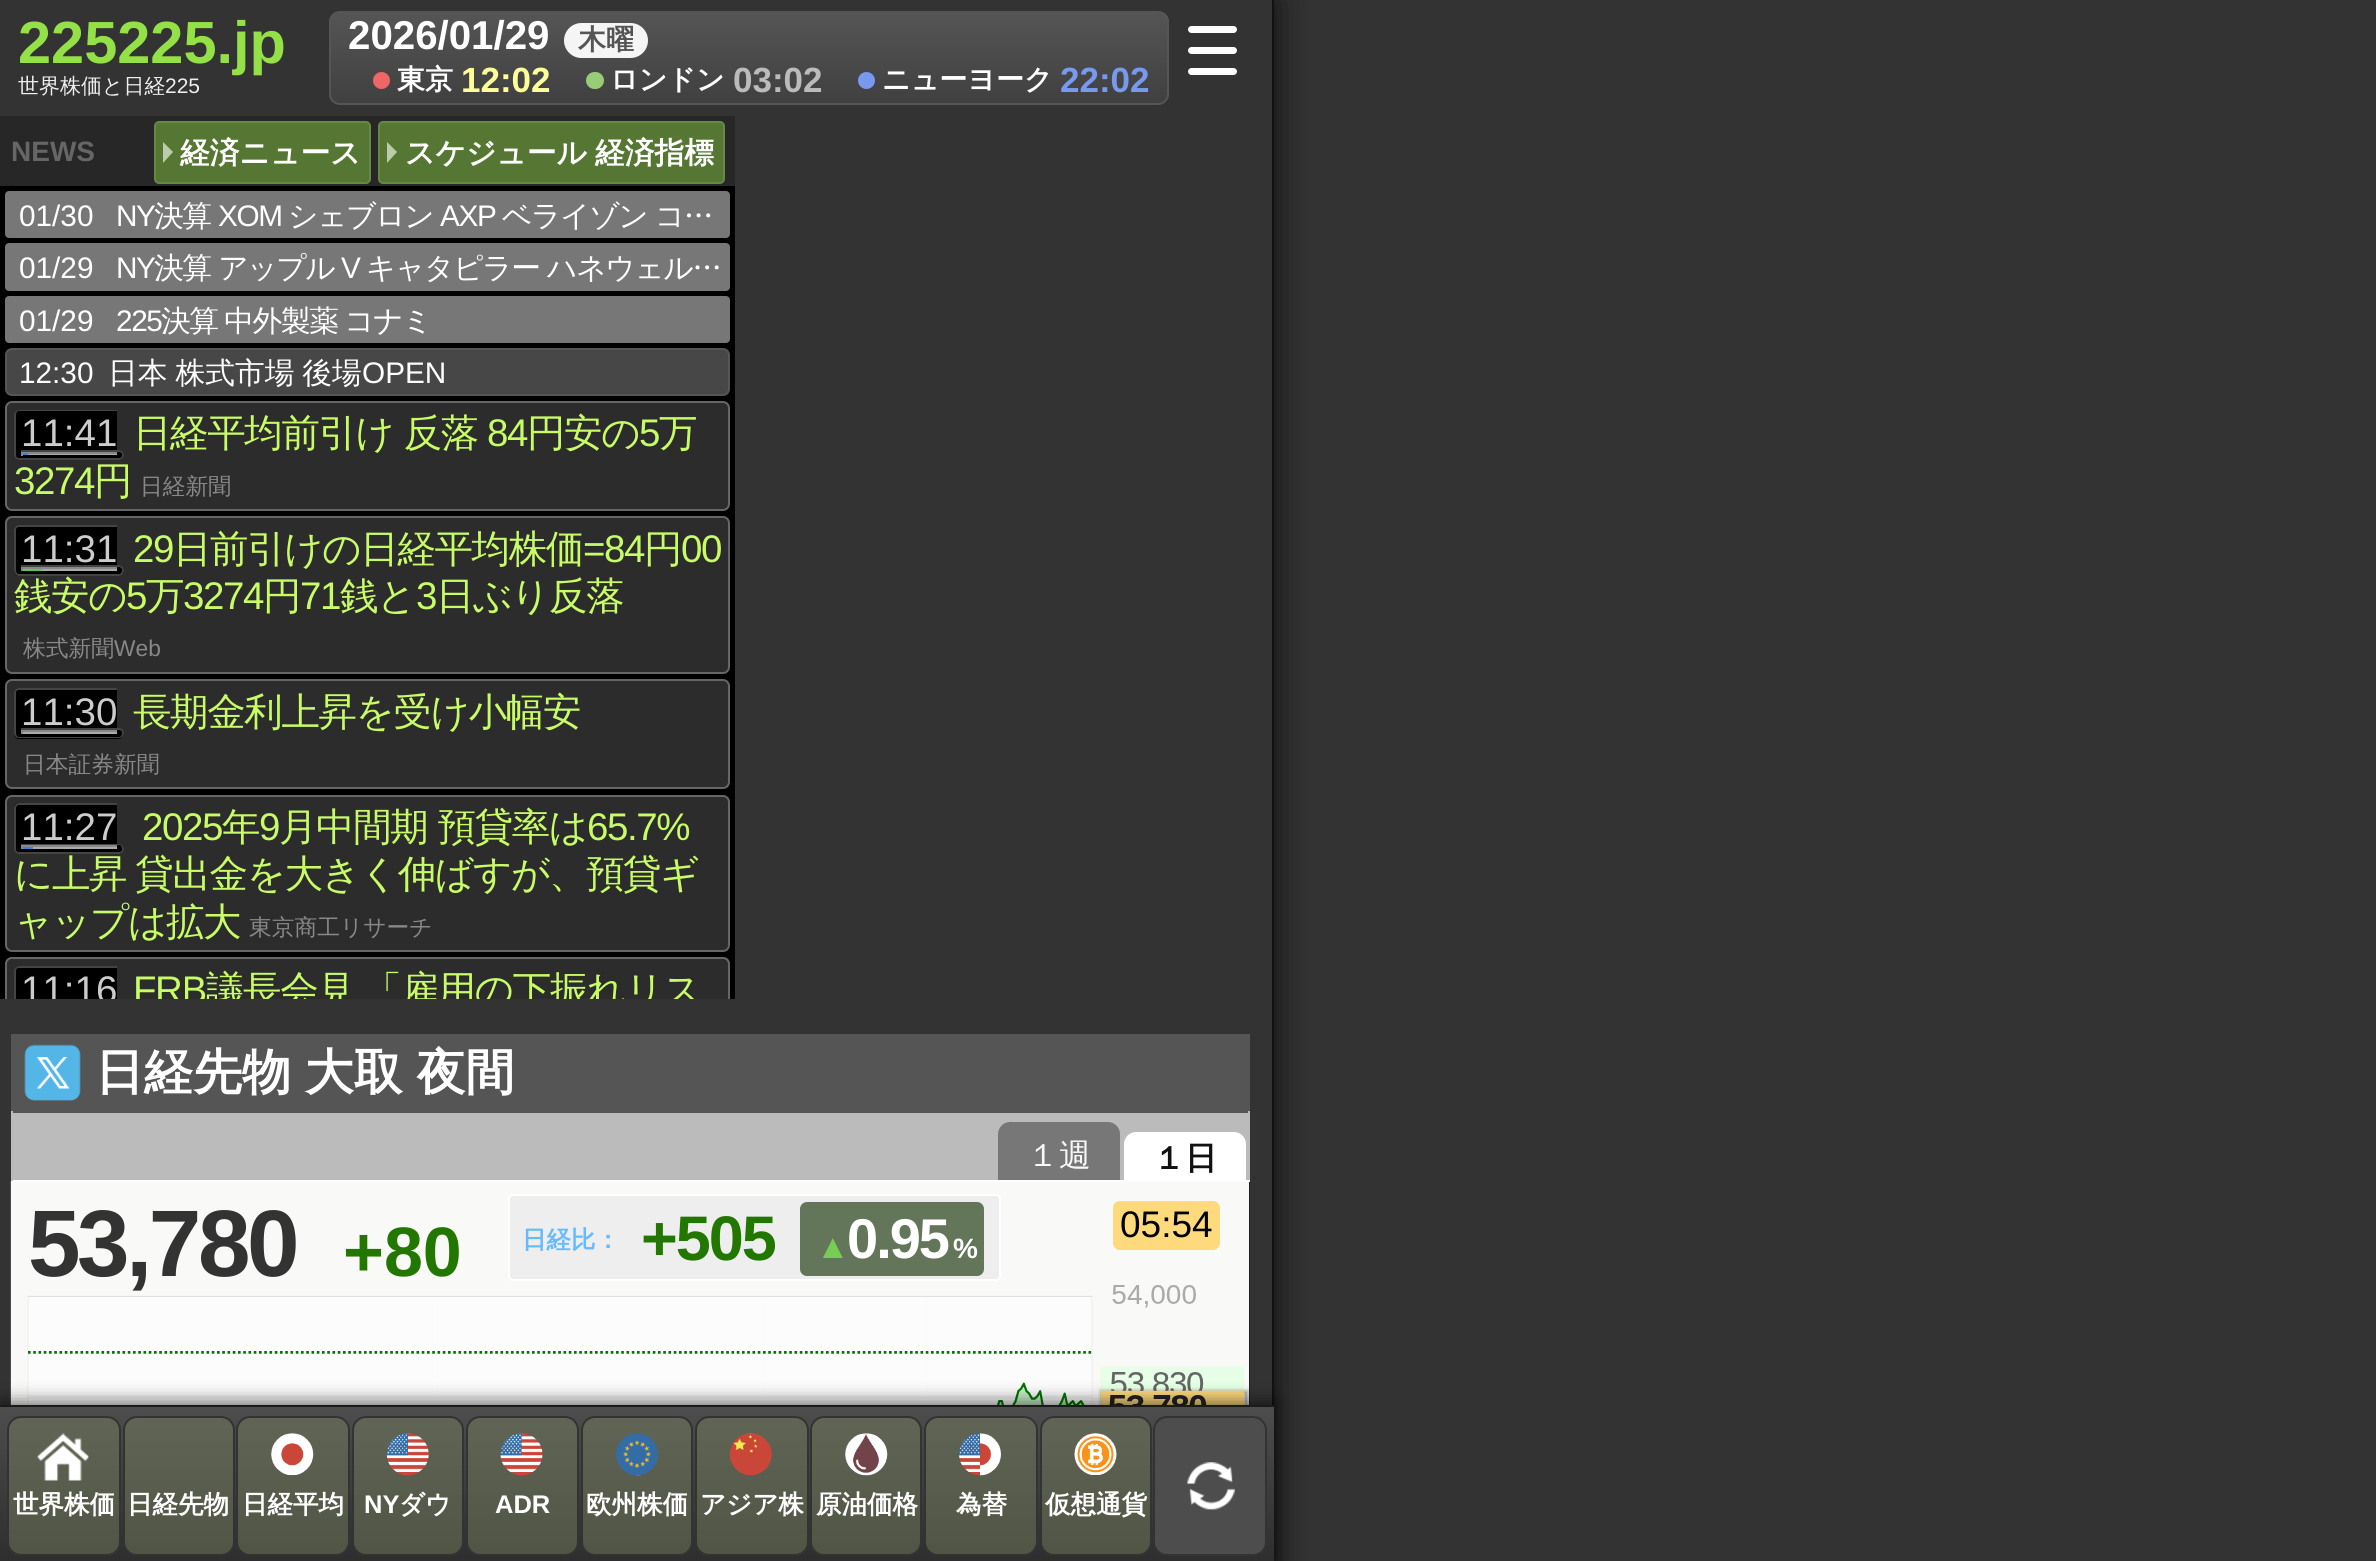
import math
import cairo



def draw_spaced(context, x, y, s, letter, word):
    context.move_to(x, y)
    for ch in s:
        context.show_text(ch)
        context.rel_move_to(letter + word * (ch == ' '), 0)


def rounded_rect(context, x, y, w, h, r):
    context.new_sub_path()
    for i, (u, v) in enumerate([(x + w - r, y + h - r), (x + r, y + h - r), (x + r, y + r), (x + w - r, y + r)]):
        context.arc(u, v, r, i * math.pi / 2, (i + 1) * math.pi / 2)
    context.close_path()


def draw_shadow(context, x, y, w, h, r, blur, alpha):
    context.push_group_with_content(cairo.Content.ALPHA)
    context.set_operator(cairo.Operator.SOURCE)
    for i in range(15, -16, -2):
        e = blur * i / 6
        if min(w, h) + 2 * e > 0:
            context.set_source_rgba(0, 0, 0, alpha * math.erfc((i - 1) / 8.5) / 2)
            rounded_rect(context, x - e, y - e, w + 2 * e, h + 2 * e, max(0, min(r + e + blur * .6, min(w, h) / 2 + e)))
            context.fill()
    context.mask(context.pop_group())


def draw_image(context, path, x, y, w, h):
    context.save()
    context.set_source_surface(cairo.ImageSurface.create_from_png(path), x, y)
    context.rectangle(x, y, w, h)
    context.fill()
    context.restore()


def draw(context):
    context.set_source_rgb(51 / 255, 51 / 255, 51 / 255)
    context.paint()
    context.save()
    context.rectangle(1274, 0, 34, 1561)
    context.clip()
    context.set_source_rgb(0, 0, 0)
    draw_shadow(context, 0, 0, 1274, 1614, 0, 17.5, 0.8)
    context.restore()
    context.set_source_rgb(17 / 255, 17 / 255, 17 / 255)
    context.rectangle(1272, 0, 2, 1405)
    context.fill()
    context.save()
    rounded_rect(context, 329, 11, 840, 94, 11)
    context.clip()
    gradient = cairo.LinearGradient(749, 12, 749, 103)
    gradient.add_color_stop_rgba(0, 85 / 255, 85 / 255, 85 / 255, 1)
    gradient.add_color_stop_rgba(1, 64 / 255, 64 / 255, 64 / 255, 1)
    context.set_source(gradient)
    context.rectangle(329, 12, 840, 91)
    context.fill()
    context.restore()
    rounded_rect(context, 330, 12, 838, 92, 10)
    context.set_source_rgb(85 / 255, 85 / 255, 85 / 255)
    context.stroke()
    context.set_source_rgb(245 / 255, 245 / 255, 245 / 255)
    rounded_rect(context, 564, 23, 84, 35, 17.5)
    context.fill()
    context.set_source_rgb(238 / 255, 102 / 255, 102 / 255)
    context.arc(381.5, 80.5, 8.5, 0, 2 * math.pi)
    context.fill()
    context.set_source_rgb(153 / 255, 204 / 255, 119 / 255)
    rounded_rect(context, 586, 72, 18, 17, 8.5)
    context.fill()
    context.set_source_rgb(119 / 255, 153 / 255, 238 / 255)
    context.arc(866.5, 80.5, 8.5, 0, 2 * math.pi)
    context.fill()
    context.set_source_rgb(1, 1, 1)
    rounded_rect(context, 1188, 26, 49, 7, 3.5)
    context.fill()
    rounded_rect(context, 1188, 47, 49, 7, 3.5)
    context.fill()
    rounded_rect(context, 1188, 68, 49, 7, 3.5)
    context.fill()
    context.set_source_rgb(0, 0, 0)
    context.rectangle(0, 186, 735, 813)
    context.fill()
    context.set_source_rgb(39 / 255, 39 / 255, 39 / 255)
    context.rectangle(0, 116, 735, 70)
    context.fill()
    context.set_source_rgb(85 / 255, 119 / 255, 51 / 255)
    rounded_rect(context, 155, 122, 215, 61, 4)
    context.fill_preserve()
    context.set_source_rgb(102 / 255, 136 / 255, 68 / 255)
    context.stroke()
    context.set_source_rgb(187 / 255, 204 / 255, 170 / 255)
    context.new_path()
    context.move_to(163, 163)
    context.line_to(163, 142)
    context.line_to(173, 152)
    context.close_path()
    context.fill()
    context.set_source_rgb(85 / 255, 119 / 255, 51 / 255)
    rounded_rect(context, 379, 122, 345, 61, 4)
    context.fill_preserve()
    context.set_source_rgb(102 / 255, 136 / 255, 68 / 255)
    context.stroke()
    context.set_source_rgb(187 / 255, 204 / 255, 170 / 255)
    context.new_path()
    context.move_to(387, 163)
    context.line_to(387, 142)
    context.line_to(397, 152)
    context.close_path()
    context.fill()
    context.set_source_rgb(119 / 255, 119 / 255, 119 / 255)
    rounded_rect(context, 6, 192, 723, 45, 3)
    context.fill_preserve()
    context.stroke()
    rounded_rect(context, 6, 244, 723, 46, 3)
    context.fill_preserve()
    context.stroke()
    rounded_rect(context, 6, 297, 723, 45, 3)
    context.fill_preserve()
    context.stroke()
    context.set_source_rgb(71 / 255, 71 / 255, 71 / 255)
    rounded_rect(context, 6, 349, 723, 46, 6)
    context.fill_preserve()
    context.set_source_rgb(85 / 255, 85 / 255, 85 / 255)
    context.stroke()
    context.set_source_rgb(44 / 255, 44 / 255, 44 / 255)
    rounded_rect(context, 6, 402, 723, 108, 6)
    context.fill_preserve()
    context.set_source_rgb(102 / 255, 102 / 255, 102 / 255)
    context.stroke()
    context.set_source_rgb(0, 0, 0)
    context.new_path()
    context.move_to(19, 410)
    context.line_to(117, 410)
    context.line_to(117, 460)
    context.line_to(19, 460)
    context.curve_to(16, 460, 14, 458, 14, 455)
    context.line_to(14, 415)
    context.curve_to(14, 412, 16, 410, 19, 410)
    context.close_path()
    context.fill()
    context.set_source_rgb(68 / 255, 68 / 255, 68 / 255)
    context.set_fill_rule(cairo.FillRule.EVEN_ODD)
    context.new_path()
    context.move_to(19, 410)
    context.line_to(117, 410)
    context.line_to(117, 460)
    context.line_to(19, 460)
    context.curve_to(16, 460, 14, 458, 14, 455)
    context.line_to(14, 415)
    context.curve_to(14, 412, 16, 410, 19, 410)
    context.close_path()
    context.move_to(19, 411)
    context.line_to(117, 411)
    context.line_to(117, 458)
    context.line_to(19, 458)
    context.curve_to(17, 458, 16, 457, 16, 455)
    context.line_to(16, 415)
    context.curve_to(16, 413, 17, 411, 19, 411)
    context.close_path()
    context.fill()
    context.set_source_rgb(0, 0, 0)
    context.new_path()
    context.move_to(21, 450)
    context.line_to(119, 450)
    context.curve_to(122, 450, 124, 452, 124, 455)
    context.curve_to(124, 458, 122, 460, 119, 460)
    context.line_to(21, 460)
    context.close_path()
    context.fill()
    context.set_source_rgb(68 / 255, 68 / 255, 68 / 255)
    context.new_path()
    context.move_to(21, 450)
    context.line_to(119, 450)
    context.curve_to(122, 450, 124, 452, 124, 455)
    context.curve_to(124, 458, 122, 460, 119, 460)
    context.line_to(21, 460)
    context.close_path()
    context.move_to(21, 452)
    context.line_to(119, 452)
    context.curve_to(121, 452, 122, 453, 122, 455)
    context.curve_to(122, 457, 121, 458, 119, 458)
    context.line_to(21, 458)
    context.close_path()
    context.fill()
    context.set_source_rgb(170 / 255, 170 / 255, 170 / 255)
    context.rectangle(23, 454, 94, 1)
    context.fill()
    context.set_source_rgb(136 / 255, 136 / 255, 136 / 255)
    context.rectangle(21, 452, 96, 2)
    context.fill()
    context.rectangle(21, 452, 2, 4)
    context.fill()
    context.set_source_rgb(51 / 255, 136 / 255, 221 / 255)
    context.rectangle(23, 453, 5, 2)
    context.fill()
    context.set_source_rgb(44 / 255, 44 / 255, 44 / 255)
    rounded_rect(context, 6, 517, 723, 156, 6)
    context.fill_preserve()
    context.set_source_rgb(102 / 255, 102 / 255, 102 / 255)
    context.stroke()
    context.set_source_rgb(0, 0, 0)
    context.new_path()
    context.move_to(19, 525)
    context.line_to(117, 525)
    context.line_to(117, 576)
    context.line_to(19, 576)
    context.curve_to(16, 576, 14, 574, 14, 571)
    context.line_to(14, 530)
    context.curve_to(14, 527, 16, 525, 19, 525)
    context.close_path()
    context.fill()
    context.set_source_rgb(68 / 255, 68 / 255, 68 / 255)
    context.new_path()
    context.move_to(19, 525)
    context.line_to(117, 525)
    context.line_to(117, 576)
    context.line_to(19, 576)
    context.curve_to(16, 576, 14, 573, 14, 570)
    context.line_to(14, 530)
    context.curve_to(14, 527, 16, 525, 19, 525)
    context.close_path()
    context.move_to(19, 527)
    context.line_to(117, 527)
    context.line_to(117, 574)
    context.line_to(19, 574)
    context.curve_to(17, 574, 16, 572, 16, 570)
    context.line_to(16, 530)
    context.curve_to(16, 528, 17, 527, 19, 527)
    context.close_path()
    context.fill()
    context.set_source_rgb(0, 0, 0)
    context.new_path()
    context.move_to(21, 565)
    context.line_to(118.5, 565)
    context.curve_to(121.5, 565, 124, 567.5, 124, 570.5)
    context.curve_to(124, 573.5, 121.5, 576, 118.5, 576)
    context.line_to(21, 576)
    context.close_path()
    context.fill()
    context.set_source_rgb(68 / 255, 68 / 255, 68 / 255)
    context.new_path()
    context.move_to(21, 565)
    context.line_to(119, 565)
    context.curve_to(122, 565, 124, 568, 124, 570)
    context.curve_to(124, 573, 122, 576, 119, 576)
    context.line_to(21, 576)
    context.close_path()
    context.move_to(21, 567)
    context.line_to(119, 567)
    context.curve_to(121, 567, 122, 569, 122, 570)
    context.curve_to(122, 572, 121, 574, 119, 574)
    context.line_to(21, 574)
    context.close_path()
    context.fill()
    context.set_source_rgb(170 / 255, 170 / 255, 170 / 255)
    context.rectangle(42, 569, 75, 2)
    context.fill()
    context.set_source_rgb(136 / 255, 136 / 255, 136 / 255)
    context.rectangle(21, 567, 96, 2)
    context.fill()
    context.rectangle(21, 567, 2, 4)
    context.fill()
    context.set_source_rgb(85 / 255, 204 / 255, 85 / 255)
    context.rectangle(23, 569, 19, 2)
    context.fill()
    context.set_source_rgb(44 / 255, 44 / 255, 44 / 255)
    rounded_rect(context, 6, 680, 723, 108, 6)
    context.fill_preserve()
    context.set_source_rgb(102 / 255, 102 / 255, 102 / 255)
    context.stroke()
    context.set_source_rgb(0, 0, 0)
    context.new_path()
    context.move_to(19, 688)
    context.line_to(117, 688)
    context.line_to(117, 739)
    context.line_to(19, 739)
    context.curve_to(16, 739, 14, 737, 14, 734)
    context.line_to(14, 693)
    context.curve_to(14, 690, 16, 688, 19, 688)
    context.close_path()
    context.fill()
    context.set_source_rgb(68 / 255, 68 / 255, 68 / 255)
    context.new_path()
    context.move_to(19, 688)
    context.line_to(117, 688)
    context.line_to(117, 738)
    context.line_to(19, 738)
    context.curve_to(16, 738, 14, 736, 14, 733)
    context.line_to(14, 693)
    context.curve_to(14, 690, 16, 688, 19, 688)
    context.close_path()
    context.move_to(19, 690)
    context.line_to(117, 690)
    context.line_to(117, 737)
    context.line_to(19, 737)
    context.curve_to(17, 737, 16, 735, 16, 733)
    context.line_to(16, 693)
    context.curve_to(16, 691, 17, 690, 19, 690)
    context.close_path()
    context.fill()
    context.set_source_rgb(0, 0, 0)
    context.new_path()
    context.move_to(21, 728)
    context.line_to(118.5, 728)
    context.curve_to(121.5, 728, 124, 730.5, 124, 733.5)
    context.curve_to(124, 736.5, 121.5, 739, 118.5, 739)
    context.line_to(21, 739)
    context.close_path()
    context.fill()
    context.set_source_rgb(68 / 255, 68 / 255, 68 / 255)
    context.new_path()
    context.move_to(21, 728)
    context.line_to(119, 728)
    context.curve_to(122, 728, 124, 730, 124, 733)
    context.curve_to(124, 736, 122, 738, 119, 738)
    context.line_to(21, 738)
    context.close_path()
    context.move_to(21, 730)
    context.line_to(119, 730)
    context.curve_to(121, 730, 122, 731, 122, 733)
    context.curve_to(122, 735, 121, 737, 119, 737)
    context.line_to(21, 737)
    context.close_path()
    context.fill()
    context.set_source_rgb(170 / 255, 170 / 255, 170 / 255)
    context.rectangle(23, 732, 94, 2)
    context.fill()
    context.set_source_rgb(136 / 255, 136 / 255, 136 / 255)
    context.rectangle(21, 730, 96, 2)
    context.fill()
    context.rectangle(21, 730, 2, 4)
    context.fill()
    context.set_source_rgb(44 / 255, 44 / 255, 44 / 255)
    rounded_rect(context, 6, 796, 723, 155, 6)
    context.fill_preserve()
    context.set_source_rgb(102 / 255, 102 / 255, 102 / 255)
    context.stroke()
    context.set_source_rgb(0, 0, 0)
    context.new_path()
    context.move_to(19, 803)
    context.line_to(117, 803)
    context.line_to(117, 854)
    context.line_to(19, 854)
    context.curve_to(16, 854, 14, 852, 14, 849)
    context.line_to(14, 808)
    context.curve_to(14, 805, 16, 803, 19, 803)
    context.close_path()
    context.fill()
    context.set_source_rgb(68 / 255, 68 / 255, 68 / 255)
    context.new_path()
    context.move_to(19, 803)
    context.line_to(117, 803)
    context.line_to(117, 854)
    context.line_to(19, 854)
    context.curve_to(16, 854, 14, 852, 14, 849)
    context.line_to(14, 808)
    context.curve_to(14, 806, 16, 803, 19, 803)
    context.close_path()
    context.move_to(19, 805)
    context.line_to(117, 805)
    context.line_to(117, 852)
    context.line_to(19, 852)
    context.curve_to(17, 852, 16, 851, 16, 849)
    context.line_to(16, 808)
    context.curve_to(16, 807, 17, 805, 19, 805)
    context.close_path()
    context.fill()
    context.set_source_rgb(0, 0, 0)
    context.new_path()
    context.move_to(21, 844)
    context.line_to(119, 844)
    context.curve_to(122, 844, 124, 846, 124, 849)
    context.curve_to(124, 852, 122, 854, 119, 854)
    context.line_to(21, 854)
    context.close_path()
    context.fill()
    context.set_source_rgb(68 / 255, 68 / 255, 68 / 255)
    context.new_path()
    context.move_to(21, 844)
    context.line_to(119, 844)
    context.curve_to(122, 844, 124, 846, 124, 849)
    context.curve_to(124, 852, 122, 854, 119, 854)
    context.line_to(21, 854)
    context.close_path()
    context.move_to(21, 845)
    context.line_to(119, 845)
    context.curve_to(121, 845, 122, 847, 122, 849)
    context.curve_to(122, 851, 121, 852, 119, 852)
    context.line_to(21, 852)
    context.close_path()
    context.fill()
    context.set_source_rgb(170 / 255, 170 / 255, 170 / 255)
    context.rectangle(33, 847, 84, 2)
    context.fill()
    context.set_source_rgb(136 / 255, 136 / 255, 136 / 255)
    context.rectangle(21, 845, 96, 2)
    context.fill()
    context.rectangle(21, 845, 2, 4)
    context.fill()
    context.set_source_rgb(51 / 255, 136 / 255, 221 / 255)
    context.rectangle(23, 847, 10, 2)
    context.fill()
    context.set_source_rgb(44 / 255, 44 / 255, 44 / 255)
    context.new_path()
    context.move_to(12, 957)
    context.line_to(723, 957)
    context.curve_to(727, 957, 730, 960, 730, 964)
    context.line_to(730, 999)
    context.line_to(5, 999)
    context.line_to(5, 964)
    context.curve_to(5, 960, 8, 957, 12, 957)
    context.close_path()
    context.fill()
    context.set_source_rgb(0, 0, 0)
    context.rectangle(1249, 1182, 1, 223)
    context.fill()
    context.set_source_rgb(85 / 255, 85 / 255, 85 / 255)
    context.rectangle(11, 1034, 1239, 79)
    context.fill()
    draw_image(context, "images/1.png", 24, 1044, 57, 57)
    context.set_source_rgb(187 / 255, 187 / 255, 187 / 255)
    context.rectangle(13, 1113, 1235, 67)
    context.fill()
    context.rectangle(1248, 1111, 2, 70)
    context.fill()
    context.set_source_rgb(1, 1, 1)
    context.rectangle(11, 1180, 1239, 2)
    context.fill()
    context.set_source_rgb(187 / 255, 187 / 255, 187 / 255)
    context.rectangle(11, 1111, 2, 70)
    context.fill()
    context.set_source_rgb(119 / 255, 119 / 255, 119 / 255)
    context.new_path()
    context.move_to(1010, 1122)
    context.line_to(1108, 1122)
    context.curve_to(1114.5, 1122, 1120, 1127.5, 1120, 1134)
    context.line_to(1120, 1180)
    context.line_to(998, 1180)
    context.line_to(998, 1134)
    context.curve_to(998, 1127.5, 1003.5, 1122, 1010, 1122)
    context.close_path()
    context.fill()
    context.set_source_rgb(1, 1, 1)
    context.new_path()
    context.move_to(1136, 1132)
    context.line_to(1234, 1132)
    context.curve_to(1240.5, 1132, 1246, 1137.5, 1246, 1144)
    context.line_to(1246, 1180)
    context.line_to(1124, 1180)
    context.line_to(1124, 1144)
    context.curve_to(1124, 1137.5, 1129.5, 1132, 1136, 1132)
    context.close_path()
    context.fill()
    draw_image(context, "images/2.png", 10, 1181, 1240, 224)
    context.set_source_rgb(238 / 255, 238 / 255, 238 / 255)
    rounded_rect(context, 509, 1195, 491, 85, 4)
    context.fill_preserve()
    context.set_source_rgb(1, 1, 1)
    context.stroke()
    context.set_source_rgb(99 / 255, 118 / 255, 90 / 255)
    rounded_rect(context, 800, 1202, 184, 74, 7)
    context.fill()
    context.set_source_rgb(1, 218 / 255, 125 / 255)
    rounded_rect(context, 1113, 1201, 107, 49, 7)
    context.fill()
    context.set_source_rgb(0, 0, 0)
    draw_shadow(context, 0, 1402, 1274, 157, 0, 9, 0.6)
    gradient = cairo.LinearGradient(637, 1407, 637, 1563)
    gradient.add_color_stop_rgba(0, 77 / 255, 77 / 255, 77 / 255, 1)
    gradient.add_color_stop_rgba(1, 46 / 255, 46 / 255, 46 / 255, 1)
    context.set_source(gradient)
    context.rectangle(0, 1407, 1274, 154)
    context.fill()
    context.set_source_rgb(26 / 255, 26 / 255, 26 / 255)
    context.rectangle(0, 1405, 1274, 2)
    context.fill()
    context.set_source_rgba(130 / 255, 140 / 255, 100 / 255, 0.4)
    rounded_rect(context, 8, 1417, 112, 138, 13)
    context.fill_preserve()
    context.set_source_rgb(51 / 255, 51 / 255, 51 / 255)
    context.stroke()
    draw_image(context, "images/3.png", 37, 1433, 52, 48)
    context.set_source_rgba(130 / 255, 140 / 255, 100 / 255, 0.4)
    rounded_rect(context, 124, 1417, 110, 138, 13)
    context.fill_preserve()
    context.set_source_rgb(51 / 255, 51 / 255, 51 / 255)
    context.stroke()
    context.set_source_rgba(130 / 255, 140 / 255, 100 / 255, 0.4)
    rounded_rect(context, 237, 1417, 112, 138, 13)
    context.fill_preserve()
    context.set_source_rgb(51 / 255, 51 / 255, 51 / 255)
    context.stroke()
    draw_image(context, "images/4.png", 271, 1433, 43, 43)
    context.set_source_rgba(130 / 255, 140 / 255, 100 / 255, 0.4)
    rounded_rect(context, 353, 1417, 110, 138, 13)
    context.fill_preserve()
    context.set_source_rgb(51 / 255, 51 / 255, 51 / 255)
    context.stroke()
    draw_image(context, "images/5.png", 386, 1433, 43, 43)
    context.set_source_rgba(130 / 255, 140 / 255, 100 / 255, 0.4)
    rounded_rect(context, 467, 1417, 111, 138, 13)
    context.fill_preserve()
    context.set_source_rgb(51 / 255, 51 / 255, 51 / 255)
    context.stroke()
    draw_image(context, "images/6.png", 500, 1433, 43, 43)
    context.set_source_rgba(130 / 255, 140 / 255, 100 / 255, 0.4)
    rounded_rect(context, 582, 1417, 110, 138, 13)
    context.fill_preserve()
    context.set_source_rgb(51 / 255, 51 / 255, 51 / 255)
    context.stroke()
    draw_image(context, "images/7.png", 615, 1433, 43, 43)
    context.set_source_rgba(130 / 255, 140 / 255, 100 / 255, 0.4)
    rounded_rect(context, 696, 1417, 112, 138, 13)
    context.fill_preserve()
    context.set_source_rgb(51 / 255, 51 / 255, 51 / 255)
    context.stroke()
    draw_image(context, "images/8.png", 729, 1433, 43, 43)
    context.set_source_rgba(130 / 255, 140 / 255, 100 / 255, 0.4)
    rounded_rect(context, 811, 1417, 110, 138, 13)
    context.fill_preserve()
    context.set_source_rgb(51 / 255, 51 / 255, 51 / 255)
    context.stroke()
    draw_image(context, "images/9.png", 845, 1433, 43, 43)
    context.set_source_rgba(130 / 255, 140 / 255, 100 / 255, 0.4)
    rounded_rect(context, 925, 1417, 112, 138, 13)
    context.fill_preserve()
    context.set_source_rgb(51 / 255, 51 / 255, 51 / 255)
    context.stroke()
    draw_image(context, "images/10.png", 958, 1433, 43, 43)
    context.set_source_rgba(130 / 255, 140 / 255, 100 / 255, 0.4)
    rounded_rect(context, 1041, 1417, 110, 138, 13)
    context.fill_preserve()
    context.set_source_rgb(51 / 255, 51 / 255, 51 / 255)
    context.stroke()
    draw_image(context, "images/11.png", 1074, 1433, 43, 43)
    context.set_source_rgb(77 / 255, 77 / 255, 77 / 255)
    rounded_rect(context, 1154, 1417, 112, 138, 13)
    context.fill_preserve()
    context.set_source_rgb(51 / 255, 51 / 255, 51 / 255)
    context.stroke()
    draw_image(context, "images/12.png", 1187, 1462, 48, 48)
    context.select_font_face("Liberation Sans", cairo.FontSlant.NORMAL, cairo.FontWeight.BOLD)
    context.set_font_size(59.5)
    context.set_source_rgb(148 / 255, 225 / 255, 71 / 255)
    context.move_to(18, 63)
    context.show_text("225225.jp")
    context.select_font_face("WenQuanYi Zen Hei Medium")
    context.set_font_size(21)
    context.set_source_rgb(238 / 255, 238 / 255, 238 / 255)
    context.move_to(18, 93)
    context.show_text("世界株価と日経")
    context.select_font_face("Liberation Sans")
    context.move_to(165, 93)
    context.show_text("225")
    context.select_font_face("Liberation Sans", cairo.FontSlant.NORMAL, cairo.FontWeight.BOLD)
    context.set_font_size(40.25)
    context.set_source_rgb(1, 1, 1)
    context.move_to(348, 49)
    context.show_text("2026/01/29")
    context.select_font_face("WenQuanYi Zen Hei", cairo.FontSlant.NORMAL, cairo.FontWeight.BOLD)
    context.set_font_size(28)
    context.set_source_rgb(85 / 255, 85 / 255, 85 / 255)
    context.move_to(578, 49)
    context.show_text("木曜")
    context.set_source_rgb(1, 1, 1)
    context.move_to(397, 89)
    context.show_text("東京")
    context.select_font_face("Liberation Sans", cairo.FontSlant.NORMAL, cairo.FontWeight.BOLD)
    context.set_font_size(35)
    context.set_source_rgb(1, 1, 153 / 255)
    context.move_to(461, 92)
    context.show_text("12:02")
    context.select_font_face("WenQuanYi Zen Hei", cairo.FontSlant.NORMAL, cairo.FontWeight.BOLD)
    context.set_font_size(28)
    context.set_source_rgb(1, 1, 1)
    context.move_to(610, 89)
    context.show_text("ロンドン")
    context.select_font_face("Liberation Sans", cairo.FontSlant.NORMAL, cairo.FontWeight.BOLD)
    context.set_font_size(35)
    context.set_source_rgb(187 / 255, 187 / 255, 187 / 255)
    context.move_to(733, 92)
    context.show_text("03:02")
    context.select_font_face("WenQuanYi Zen Hei", cairo.FontSlant.NORMAL, cairo.FontWeight.BOLD)
    context.set_font_size(28)
    context.set_source_rgb(1, 1, 1)
    context.move_to(882, 89)
    context.show_text("ニューヨーク")
    context.select_font_face("Liberation Sans", cairo.FontSlant.NORMAL, cairo.FontWeight.BOLD)
    context.set_font_size(35)
    context.set_source_rgb(119 / 255, 153 / 255, 238 / 255)
    context.move_to(1060, 92)
    context.show_text("22:02")
    context.set_font_size(28)
    context.set_source_rgb(102 / 255, 102 / 255, 102 / 255)
    context.move_to(11, 161)
    context.show_text("NEWS")
    context.select_font_face("WenQuanYi Zen Hei", cairo.FontSlant.NORMAL, cairo.FontWeight.BOLD)
    context.set_font_size(29.75)
    context.set_source_rgb(1, 1, 1)
    context.move_to(180, 163)
    context.show_text("経済ニュース")
    draw_spaced(context, 405, 163, "スケジュール 経済指標", 0, -1)
    context.select_font_face("Liberation Sans")
    context.move_to(19, 226)
    context.show_text("01/30")
    draw_spaced(context, 116, 226, "NY", -1.4, 0)
    context.select_font_face("WenQuanYi Zen Hei Medium")
    draw_spaced(context, 154, 226, "決算", -1.4, 0)
    context.select_font_face("Liberation Sans")
    draw_spaced(context, 218, 226, "XOM", -1.4, 0)
    context.select_font_face("WenQuanYi Zen Hei Medium")
    draw_spaced(context, 288, 226, "シェブロン", -1.4, 0)
    context.select_font_face("Liberation Sans")
    draw_spaced(context, 440, 226, "AXP", -1.4, 0)
    context.select_font_face("WenQuanYi Zen Hei Medium")
    draw_spaced(context, 502, 226, "ベライゾン コ…", -1.4, 0)
    context.select_font_face("Liberation Sans")
    context.move_to(19, 278)
    context.show_text("01/29")
    draw_spaced(context, 116, 278, "NY", -1.4, 0)
    context.select_font_face("WenQuanYi Zen Hei Medium")
    draw_spaced(context, 154, 278, "決算 アップル", -1.4, 0)
    context.select_font_face("Liberation Sans")
    draw_spaced(context, 341, 278, "V", -1.4, 0)
    context.select_font_face("WenQuanYi Zen Hei Medium")
    draw_spaced(context, 366, 278, "キャタピラー ハネウェル…", -1.4, 0)
    context.select_font_face("Liberation Sans")
    context.move_to(19, 331)
    context.show_text("01/29")
    draw_spaced(context, 116, 331, "225", -1.4, 0)
    context.select_font_face("WenQuanYi Zen Hei Medium")
    draw_spaced(context, 161, 331, "決算 中外製薬 コナミ", -1.4, -1)
    context.select_font_face("Liberation Sans")
    context.move_to(19, 383)
    context.show_text("12:30")
    context.select_font_face("WenQuanYi Zen Hei Medium")
    draw_spaced(context, 108, 383, "日本 株式市場 後場", 0, -1)
    context.select_font_face("Liberation Sans")
    context.move_to(362, 383)
    context.show_text("OPEN")
    context.select_font_face("WenQuanYi Zen Hei Medium")
    context.set_font_size(38.5)
    context.set_source_rgb(199 / 255, 252 / 255, 103 / 255)
    draw_spaced(context, 133, 446, "日経平均前引け 反落", -1.4, 0)
    context.select_font_face("Liberation Sans")
    draw_spaced(context, 487, 446, "84", -1.4, 0)
    context.select_font_face("WenQuanYi Zen Hei Medium")
    draw_spaced(context, 527, 446, "円安の", -1.4, 0)
    context.select_font_face("Liberation Sans")
    draw_spaced(context, 639, 446, "5", -1.4, 0)
    context.select_font_face("WenQuanYi Zen Hei Medium")
    draw_spaced(context, 659, 446, "万", -1.4, 0)
    context.select_font_face("Liberation Sans")
    draw_spaced(context, 14, 494, "3274", -1.4, 0)
    context.select_font_face("WenQuanYi Zen Hei Medium")
    draw_spaced(context, 94, 494, "円", -1.4, 0)
    context.set_font_size(22.75)
    context.set_source_rgb(136 / 255, 136 / 255, 136 / 255)
    context.move_to(140, 494)
    context.show_text("日経新聞")
    context.select_font_face("Liberation Sans")
    context.set_font_size(38.5)
    context.set_source_rgb(204 / 255, 204 / 255, 204 / 255)
    context.move_to(21, 446)
    context.show_text("11:41")
    context.set_source_rgb(199 / 255, 252 / 255, 103 / 255)
    draw_spaced(context, 133, 562, "29", -1.4, 0)
    context.select_font_face("WenQuanYi Zen Hei Medium")
    draw_spaced(context, 173, 562, "日前引けの日経平均株価", -1.4, 0)
    context.select_font_face("Liberation Sans")
    draw_spaced(context, 583, 562, "=84", -1.4, 0)
    context.select_font_face("WenQuanYi Zen Hei Medium")
    draw_spaced(context, 644, 562, "円", -1.4, 0)
    context.select_font_face("Liberation Sans")
    draw_spaced(context, 681, 562, "00", -1.4, 0)
    context.select_font_face("WenQuanYi Zen Hei Medium")
    draw_spaced(context, 14, 609, "銭安の", -1.4, 0)
    context.select_font_face("Liberation Sans")
    draw_spaced(context, 126, 609, "5", -1.4, 0)
    context.select_font_face("WenQuanYi Zen Hei Medium")
    draw_spaced(context, 146, 609, "万", -1.4, 0)
    context.select_font_face("Liberation Sans")
    draw_spaced(context, 183, 609, "3274", -1.4, 0)
    context.select_font_face("WenQuanYi Zen Hei Medium")
    draw_spaced(context, 263, 609, "円", -1.4, 0)
    context.select_font_face("Liberation Sans")
    draw_spaced(context, 300, 609, "71", -1.4, 0)
    context.select_font_face("WenQuanYi Zen Hei Medium")
    draw_spaced(context, 340, 609, "銭と", -1.4, 0)
    context.select_font_face("Liberation Sans")
    draw_spaced(context, 416, 609, "3", -1.4, 0)
    context.select_font_face("WenQuanYi Zen Hei Medium")
    draw_spaced(context, 436, 609, "日ぶり反落", -1.4, 0)
    context.set_font_size(22.75)
    context.set_source_rgb(136 / 255, 136 / 255, 136 / 255)
    context.move_to(23, 656)
    context.show_text("株式新聞")
    context.select_font_face("Liberation Sans")
    context.move_to(114, 656)
    context.show_text("Web")
    context.set_font_size(38.5)
    context.set_source_rgb(204 / 255, 204 / 255, 204 / 255)
    context.move_to(21, 562)
    context.show_text("11:31")
    context.select_font_face("WenQuanYi Zen Hei Medium")
    context.set_source_rgb(199 / 255, 252 / 255, 103 / 255)
    draw_spaced(context, 133, 725, "長期金利上昇を受け小幅安", -1.4, 0)
    context.set_font_size(22.75)
    context.set_source_rgb(136 / 255, 136 / 255, 136 / 255)
    context.move_to(23, 772)
    context.show_text("日本証券新聞")
    context.select_font_face("Liberation Sans")
    context.set_font_size(38.5)
    context.set_source_rgb(204 / 255, 204 / 255, 204 / 255)
    context.move_to(21, 725)
    context.show_text("11:30")
    context.set_source_rgb(199 / 255, 252 / 255, 103 / 255)
    draw_spaced(context, 142, 840, "2025", -1.4, 0)
    context.select_font_face("WenQuanYi Zen Hei Medium")
    draw_spaced(context, 222, 840, "年", -1.4, 0)
    context.select_font_face("Liberation Sans")
    draw_spaced(context, 259, 840, "9", -1.4, 0)
    context.select_font_face("WenQuanYi Zen Hei Medium")
    draw_spaced(context, 279, 840, "月中間期 預貸率は", -1.4, 0)
    context.select_font_face("Liberation Sans")
    draw_spaced(context, 587, 840, "65.7%", -1.4, 0)
    context.select_font_face("WenQuanYi Zen Hei Medium")
    draw_spaced(context, 14, 887, "に上昇 貸出金を大きく伸ばすが、預貸ギ", -1.4, -1)
    draw_spaced(context, 14, 935, "ャップは拡大", -1.4, 0)
    context.set_font_size(22.75)
    context.set_source_rgb(136 / 255, 136 / 255, 136 / 255)
    context.move_to(249, 935)
    context.show_text("東京商工リサーチ")
    context.select_font_face("Liberation Sans")
    context.set_font_size(38.5)
    context.set_source_rgb(204 / 255, 204 / 255, 204 / 255)
    context.move_to(21, 840)
    context.show_text("11:27")
    context.select_font_face("WenQuanYi Zen Hei", cairo.FontSlant.NORMAL, cairo.FontWeight.BOLD)
    context.set_font_size(49)
    context.set_source_rgb(1, 1, 1)
    draw_spaced(context, 95, 1089, "日経先物 大取 夜間", 0, -1)
    context.save()
    context.set_fill_rule(cairo.FillRule.WINDING)
    context.rectangle(0, 116, 735, 883)
    context.clip()
    rounded_rect(context, 6, 958, 723, 109, 6)
    context.set_source_rgb(102 / 255, 102 / 255, 102 / 255)
    context.stroke()
    context.restore()
    context.set_source_rgb(0, 0, 0)
    context.new_path()
    context.move_to(19, 966)
    context.line_to(117, 966)
    context.line_to(117, 999)
    context.line_to(14, 999)
    context.line_to(14, 971)
    context.curve_to(14, 968, 16, 966, 19, 966)
    context.close_path()
    context.fill()
    context.save()
    context.set_fill_rule(cairo.FillRule.WINDING)
    context.rectangle(0, 116, 735, 883)
    context.clip()
    context.set_source_rgb(68 / 255, 68 / 255, 68 / 255)
    context.set_fill_rule(cairo.FillRule.EVEN_ODD)
    context.new_path()
    context.move_to(19, 966)
    context.line_to(117, 966)
    context.line_to(117, 1017)
    context.line_to(19, 1017)
    context.curve_to(16, 1017, 14, 1014, 14, 1012)
    context.line_to(14, 971)
    context.curve_to(14, 968, 16, 966, 19, 966)
    context.close_path()
    context.move_to(19, 968)
    context.line_to(117, 968)
    context.line_to(117, 1015)
    context.line_to(19, 1015)
    context.curve_to(17, 1015, 16, 1013, 16, 1012)
    context.line_to(16, 971)
    context.curve_to(16, 969, 17, 968, 19, 968)
    context.close_path()
    context.fill()
    context.select_font_face("Liberation Sans")
    context.set_font_size(38.5)
    context.set_source_rgb(204 / 255, 204 / 255, 204 / 255)
    context.move_to(21, 1003)
    context.show_text("11:16")
    context.select_font_face("WenQuanYi Zen Hei Medium")
    context.set_source_rgb(199 / 255, 252 / 255, 103 / 255)
    draw_spaced(context, 206, 1003, "議長会見 「雇用の下振れリス", -1.4, -1)
    context.select_font_face("Liberation Sans")
    draw_spaced(context, 133, 1003, "FRB", -1.4, 0)
    context.restore()
    context.select_font_face("WenQuanYi Zen Hei Medium")
    context.set_font_size(32)
    context.set_source_rgb(247 / 255, 247 / 255, 247 / 255)
    context.move_to(1027, 1166)
    context.show_text("１週")
    context.select_font_face("WenQuanYi Zen Hei", cairo.FontSlant.NORMAL, cairo.FontWeight.BOLD)
    context.set_source_rgb(17 / 255, 17 / 255, 17 / 255)
    context.move_to(1153, 1169)
    context.show_text("１日")
    context.select_font_face("Liberation Sans", cairo.FontSlant.NORMAL, cairo.FontWeight.BOLD)
    context.set_font_size(94.5)
    context.set_source_rgb(51 / 255, 51 / 255, 51 / 255)
    draw_spaced(context, 28, 1276, "53,780", -3.5, 0)
    context.set_font_size(70)
    context.set_source_rgb(34 / 255, 119 / 255, 0)
    context.move_to(343, 1276)
    context.show_text("+80")
    context.select_font_face("WenQuanYi Zen Hei", cairo.FontSlant.NORMAL, cairo.FontWeight.BOLD)
    context.set_font_size(24.5)
    context.set_source_rgb(102 / 255, 187 / 255, 1)
    context.move_to(522, 1248)
    context.show_text("日経比：")
    context.select_font_face("Liberation Sans", cairo.FontSlant.NORMAL, cairo.FontWeight.BOLD)
    context.set_font_size(63)
    context.set_source_rgb(34 / 255, 119 / 255, 0)
    draw_spaced(context, 641, 1260, "+505", -2, 0)
    context.set_font_size(34)
    context.set_source_rgb(119 / 255, 204 / 255, 85 / 255)
    draw_spaced(context, 816, 1258, "▲", -2, 0)
    context.set_font_size(56)
    context.set_source_rgb(1, 1, 1)
    draw_spaced(context, 847, 1258, "0.95", -2, 0)
    context.set_font_size(28)
    draw_spaced(context, 953, 1258, "%", -2, 0)
    context.select_font_face("Liberation Sans")
    context.set_font_size(37)
    context.set_source_rgb(0, 0, 0)
    context.move_to(1120, 1237)
    context.show_text("05:54")
    context.select_font_face("WenQuanYi Zen Hei", cairo.FontSlant.NORMAL, cairo.FontWeight.BOLD)
    context.set_font_size(25.5)
    context.set_source_rgb(1, 1, 1)
    context.move_to(13, 1513)
    context.show_text("世界株価")
    context.move_to(127, 1513)
    context.show_text("日経先物")
    context.move_to(242, 1513)
    context.show_text("日経平均")
    context.select_font_face("Liberation Sans", cairo.FontSlant.NORMAL, cairo.FontWeight.BOLD)
    context.move_to(364, 1513)
    context.show_text("NY")
    context.select_font_face("WenQuanYi Zen Hei", cairo.FontSlant.NORMAL, cairo.FontWeight.BOLD)
    context.move_to(399, 1513)
    context.show_text("ダウ")
    context.select_font_face("Liberation Sans", cairo.FontSlant.NORMAL, cairo.FontWeight.BOLD)
    context.move_to(495, 1513)
    context.show_text("ADR")
    context.select_font_face("WenQuanYi Zen Hei", cairo.FontSlant.NORMAL, cairo.FontWeight.BOLD)
    context.move_to(586, 1513)
    context.show_text("欧州株価")
    context.move_to(700, 1513)
    context.show_text("アジア株")
    context.move_to(816, 1513)
    context.show_text("原油価格")
    context.move_to(956, 1513)
    context.show_text("為替")
    context.move_to(1045, 1513)
    context.show_text("仮想通貨")


surface = cairo.ImageSurface(cairo.Format.RGB24, 2376, 1561)
context = cairo.Context(surface)
options = cairo.FontOptions()
options.set_hint_metrics(cairo.HintMetrics.OFF)
options.set_hint_style(cairo.HintStyle.NONE)
context.set_font_options(options)
context.set_miter_limit(4)
draw(context)
surface.write_to_png("out.png")
